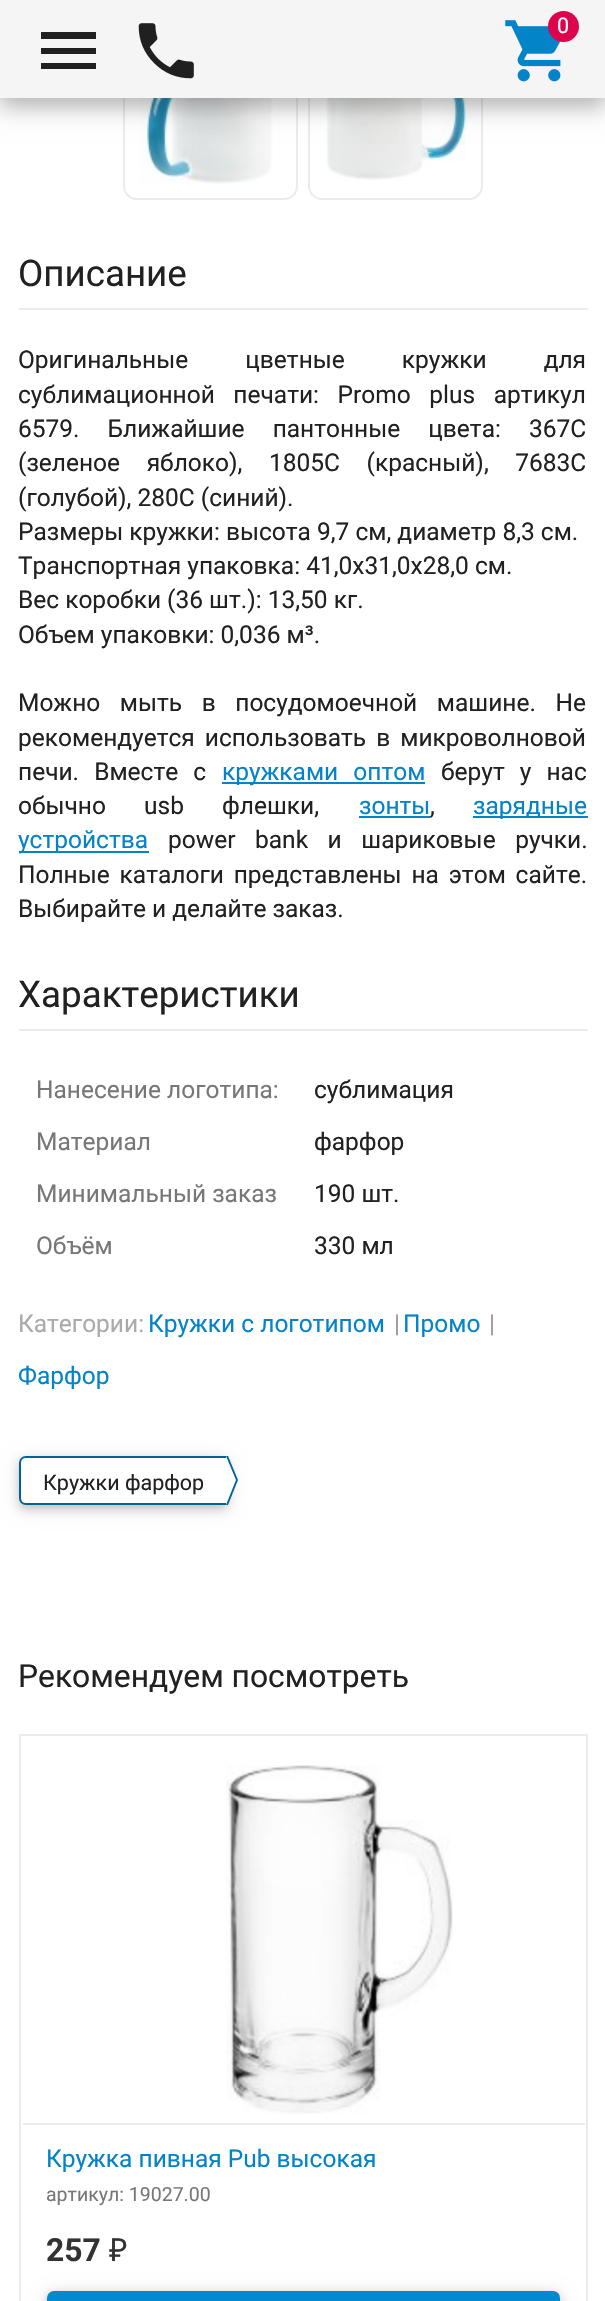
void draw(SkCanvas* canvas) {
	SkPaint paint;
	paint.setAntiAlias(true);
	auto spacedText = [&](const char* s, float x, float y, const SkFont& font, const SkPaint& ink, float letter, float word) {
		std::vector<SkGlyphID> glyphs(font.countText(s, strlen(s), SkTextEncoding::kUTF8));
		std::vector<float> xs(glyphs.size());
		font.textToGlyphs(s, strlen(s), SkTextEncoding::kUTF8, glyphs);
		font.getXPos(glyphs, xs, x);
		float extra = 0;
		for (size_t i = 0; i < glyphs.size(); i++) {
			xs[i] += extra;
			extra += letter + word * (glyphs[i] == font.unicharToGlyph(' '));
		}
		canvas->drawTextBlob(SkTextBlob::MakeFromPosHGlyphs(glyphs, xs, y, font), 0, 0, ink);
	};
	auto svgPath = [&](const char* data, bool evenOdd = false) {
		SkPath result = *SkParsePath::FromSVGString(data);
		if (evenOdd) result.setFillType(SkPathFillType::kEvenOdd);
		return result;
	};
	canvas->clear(0xffffffff);
	paint.setStroke(true);
	paint.setStrokeWidth(2);
	paint.setColor(0xffebebeb);
	canvas->drawRoundRect(SkRect::MakeXYWH(124, 26, 173, 173), 13, 13, paint);
	canvas->drawImageRect(SkImages::DeferredFromEncodedData(SkData::MakeFromFileName("img3.png")), SkRect::MakeXYWH(140, 98, 140, 86), SkSamplingOptions());
	canvas->drawRoundRect(SkRect::MakeXYWH(309, 26, 173, 173), 13, 13, paint);
	canvas->drawImageRect(SkImages::DeferredFromEncodedData(SkData::MakeFromFileName("img4.png")), SkRect::MakeXYWH(325, 98, 141, 82), SkSamplingOptions());
	paint.setStroke(false);
	paint.setColor(0x26000000);
	paint.setMaskFilter(SkMaskFilter::MakeBlur(kNormal_SkBlurStyle, 13));
	canvas->drawRect(SkRect::MakeXYWH(0, 7, 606, 98), paint);
	paint.setMaskFilter(nullptr);
	paint.setColor(0x2e000000);
	paint.setMaskFilter(SkMaskFilter::MakeBlur(kNormal_SkBlurStyle, 9.5));
	canvas->drawRect(SkRect::MakeXYWH(0, 9, 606, 98), paint);
	paint.setMaskFilter(nullptr);
	paint.setColor(0xfff5f5f5);
	canvas->drawRect(SkRect::MakeXYWH(0, 0, 605, 98), paint);
	paint.setColor(0xff202020);
	canvas->drawPath(svgPath("M41 32H96V39H41ZM41 54V48H96V54ZM41 69V63H96V69Z"), paint);
	canvas->drawImageRect(SkImages::DeferredFromEncodedData(SkData::MakeFromFileName("img1.png")), SkRect::MakeXYWH(138, 23, 56, 56), SkSamplingOptions());
	canvas->drawImageRect(SkImages::DeferredFromEncodedData(SkData::MakeFromFileName("img2.png")), SkRect::MakeXYWH(505, 20, 56, 62), SkSamplingOptions());
	paint.setColor(0xffdc044c);
	canvas->drawCircle(563.5, 26.5, 15.5, paint);
	SkFont f1(fontMgr->matchFamilyStyle("Roboto", SkFontStyle::Normal()), 21.5);
	f1.setSubpixel(true);
	paint.setColor(0xffffffff);
	canvas->drawString("0", 557, 33, f1, paint);
	paint.setColor(0xffebebeb);
	canvas->drawRect(SkRect::MakeXYWH(19, 308, 569, 2), paint);
	SkFont f2(fontMgr->matchFamilyStyle("Roboto", SkFontStyle::Normal()), 36.75);
	f2.setSubpixel(true);
	paint.setColor(0xff212121);
	canvas->drawString("Описание", 18, 286, f2, paint);
	SkFont f3(fontMgr->matchFamilyStyle("Roboto", SkFontStyle::Normal()), 24.5);
	f3.setSubpixel(true);
	spacedText("Оригинальные цветные кружки для", 18, 368, f3, paint, 0, 51);
	spacedText("сублимационной печати: Promo plus артикул", 18, 403, f3, paint, 0, 12.5);
	spacedText("6579. Ближайшие пантонные цвета: 367C", 18, 437, f3, paint, 0, 22);
	spacedText("(зеленое яблоко), 1805C (красный), 7683C", 18, 471, f3, paint, 0, 20.5);
	canvas->drawString("(голубой), 280C (синий).", 18, 506, f3, paint);
	canvas->drawString("Размеры кружки: высота 9,7 см, диаметр 8,3 см.", 18, 540, f3, paint);
	canvas->drawString("Транспортная упаковка: 41,0x31,0x28,0 см.", 18, 574, f3, paint);
	canvas->drawString("Вес коробки (36 шт.): 13,50 кг.", 18, 608, f3, paint);
	canvas->drawString("Объем упаковки: 0,036 м³.", 18, 643, f3, paint);
	spacedText("Можно мыть в посудомоечной машине. Не", 18, 711, f3, paint, 0, 13.5);
	spacedText("рекомендуется использовать в микроволновой", 18, 746, f3, paint, 0, 4);
	spacedText("печи. Вместе с", 18, 780, f3, paint, 0, 9);
	paint.setColor(0xff0383c8);
	canvas->drawRect(SkRect::MakeXYWH(222, 782, 203, 2), paint);
	spacedText("кружками оптом", 222, 780, f3, paint, 0, 9);
	paint.setColor(0xff212121);
	spacedText("берут у нас", 441, 780, f3, paint, 0, 9);
	spacedText("обычно usb флешки,", 18, 814, f3, paint, 0, 32);
	paint.setColor(0xff0383c8);
	canvas->drawString("зонты", 359, 814, f3, paint);
	canvas->drawRect(SkRect::MakeXYWH(359, 816, 72, 2), paint);
	paint.setColor(0xff212121);
	canvas->drawString(",", 430, 814, f3, paint);
	paint.setColor(0xff0383c8);
	canvas->drawRect(SkRect::MakeXYWH(473, 816, 115, 2), paint);
	canvas->drawString("зарядные", 473, 814, f3, paint);
	canvas->drawRect(SkRect::MakeXYWH(19, 851, 130, 2), paint);
	canvas->drawString("устройства", 18, 848, f3, paint);
	paint.setColor(0xff212121);
	spacedText("power bank и шариковые ручки.", 168, 848, f3, paint, 0, 13.5);
	spacedText("Полные каталоги представлены на этом сайте.", 18, 883, f3, paint, 0, 3.75);
	canvas->drawString("Выбирайте и делайте заказ.", 18, 917, f3, paint);
	paint.setColor(0xffebebeb);
	canvas->drawRect(SkRect::MakeXYWH(19, 1029, 569, 2), paint);
	paint.setColor(0xff212121);
	canvas->drawString("Характеристики", 18, 1007, f2, paint);
	paint.setColor(0xff777777);
	canvas->drawString("Нанесение логотипа:", 36, 1098, f3, paint);
	paint.setColor(0xff212121);
	canvas->drawString("сублимация", 314, 1098, f3, paint);
	paint.setColor(0xff777777);
	canvas->drawString("Материал", 36, 1150, f3, paint);
	paint.setColor(0xff212121);
	canvas->drawString("фарфор", 314, 1150, f3, paint);
	paint.setColor(0xff777777);
	canvas->drawString("Минимальный заказ", 36, 1202, f3, paint);
	paint.setColor(0xff212121);
	canvas->drawString("190 шт.", 314, 1202, f3, paint);
	paint.setColor(0xff777777);
	canvas->drawString("Объём", 36, 1254, f3, paint);
	paint.setColor(0xff212121);
	canvas->drawString("330 мл", 314, 1254, f3, paint);
	paint.setColor(0xffaaaaaa);
	canvas->drawString("Категории:", 18, 1332, f3, paint);
	paint.setColor(0xff0383c8);
	canvas->drawString("Кружки с логотипом", 148, 1332, f3, paint);
	paint.setColor(0xff999999);
	canvas->drawString("|", 394, 1332, f3, paint);
	paint.setColor(0xff0383c8);
	canvas->drawString("Промо", 403, 1332, f3, paint);
	paint.setColor(0xff999999);
	canvas->drawString("|", 489, 1332, f3, paint);
	paint.setColor(0xff0383c8);
	canvas->drawString("Фарфор", 18, 1384, f3, paint);
	paint.setColor(0x1f000000);
	paint.setMaskFilter(SkMaskFilter::MakeBlur(kNormal_SkBlurStyle, 9));
	canvas->drawRoundRect(SkRect::MakeXYWH(19, 1460, 209, 49), 7, 7, paint);
	paint.setMaskFilter(nullptr);
	paint.setColor(0x29000000);
	paint.setMaskFilter(SkMaskFilter::MakeBlur(kNormal_SkBlurStyle, 4.5));
	canvas->drawRoundRect(SkRect::MakeXYWH(19, 1460, 209, 49), 7, 7, paint);
	paint.setMaskFilter(nullptr);
	paint.setColor(0xffffffff);
	canvas->drawPath(svgPath("M26 1457H227V1504H26C22.5 1504 20 1501.5 20 1498V1463C20 1459.5 22.5 1457 26 1457Z"), paint);
	paint.setStroke(true);
	paint.setColor(0xff026296);
	canvas->drawPath(svgPath("M26 1457H227V1504H26C22.5 1504 20 1501.5 20 1498V1463C20 1459.5 22.5 1457 26 1457Z"), paint);
	paint.setStroke(false);
	canvas->drawPath(svgPath("M228 1505V1456L238 1480Z"), paint);
	paint.setColor(0xffffffff);
	canvas->drawPath(svgPath("M226 1505V1456L236 1480Z"), paint);
	paint.setColor(0xff212121);
	canvas->drawString("Кружки фарфор", 43, 1490, f1, paint);
	SkFont f4(fontMgr->matchFamilyStyle("Roboto", SkFontStyle::Normal()), 31.8);
	f4.setSubpixel(true);
	canvas->drawString("Рекомендуем посмотреть", 18, 1687, f4, paint);
	paint.setStroke(true);
	paint.setColor(0xffebebeb);
	canvas->drawRect(SkRect::MakeXYWH(20, 1735, 567, 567), paint);
	canvas->drawImageRect(SkImages::DeferredFromEncodedData(SkData::MakeFromFileName("img5.png")), SkRect::MakeXYWH(226, 1765, 227, 349), SkSamplingOptions());
	paint.setStroke(false);
	canvas->drawRect(SkRect::MakeXYWH(23, 2123, 562, 2), paint);
	paint.setColor(0xff0383c8);
	canvas->drawString("Кружка пивная Pub высокая", 46, 2167, f3, paint);
	SkFont f5(fontMgr->matchFamilyStyle("Roboto", SkFontStyle::Normal()), 19.5);
	f5.setSubpixel(true);
	paint.setColor(0xff777777);
	canvas->drawString("артикул: 19027.00", 46, 2201, f5, paint);
	SkFont f6(fontMgr->matchFamilyStyle("Roboto", SkFontStyle::Bold()), 31.8);
	f6.setSubpixel(true);
	paint.setColor(0xff333333);
	canvas->drawString("257", 46, 2261, f6, paint);
	SkFont f7(fontMgr->matchFamilyStyle("Noto Sans", SkFontStyle::Normal()), 31.8);
	f7.setSubpixel(true);
	canvas->drawString("₽", 109, 2261, f7, paint);
	paint.setColor(0x1f000000);
	paint.setMaskFilter(SkMaskFilter::MakeBlur(kNormal_SkBlurStyle, 9));
	canvas->drawRoundRect(SkRect::MakeXYWH(47, 2294, 513, 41), 7, 7, paint);
	paint.setMaskFilter(nullptr);
	paint.setColor(0x29000000);
	paint.setMaskFilter(SkMaskFilter::MakeBlur(kNormal_SkBlurStyle, 4.5));
	canvas->drawRoundRect(SkRect::MakeXYWH(47, 2294, 513, 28), 7, 7, paint);
	paint.setMaskFilter(nullptr);
	paint.setColor(0xff0289d1);
	canvas->drawRoundRect(SkRect::MakeXYWH(47, 2291, 513, 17), 7, 7, paint);
}
